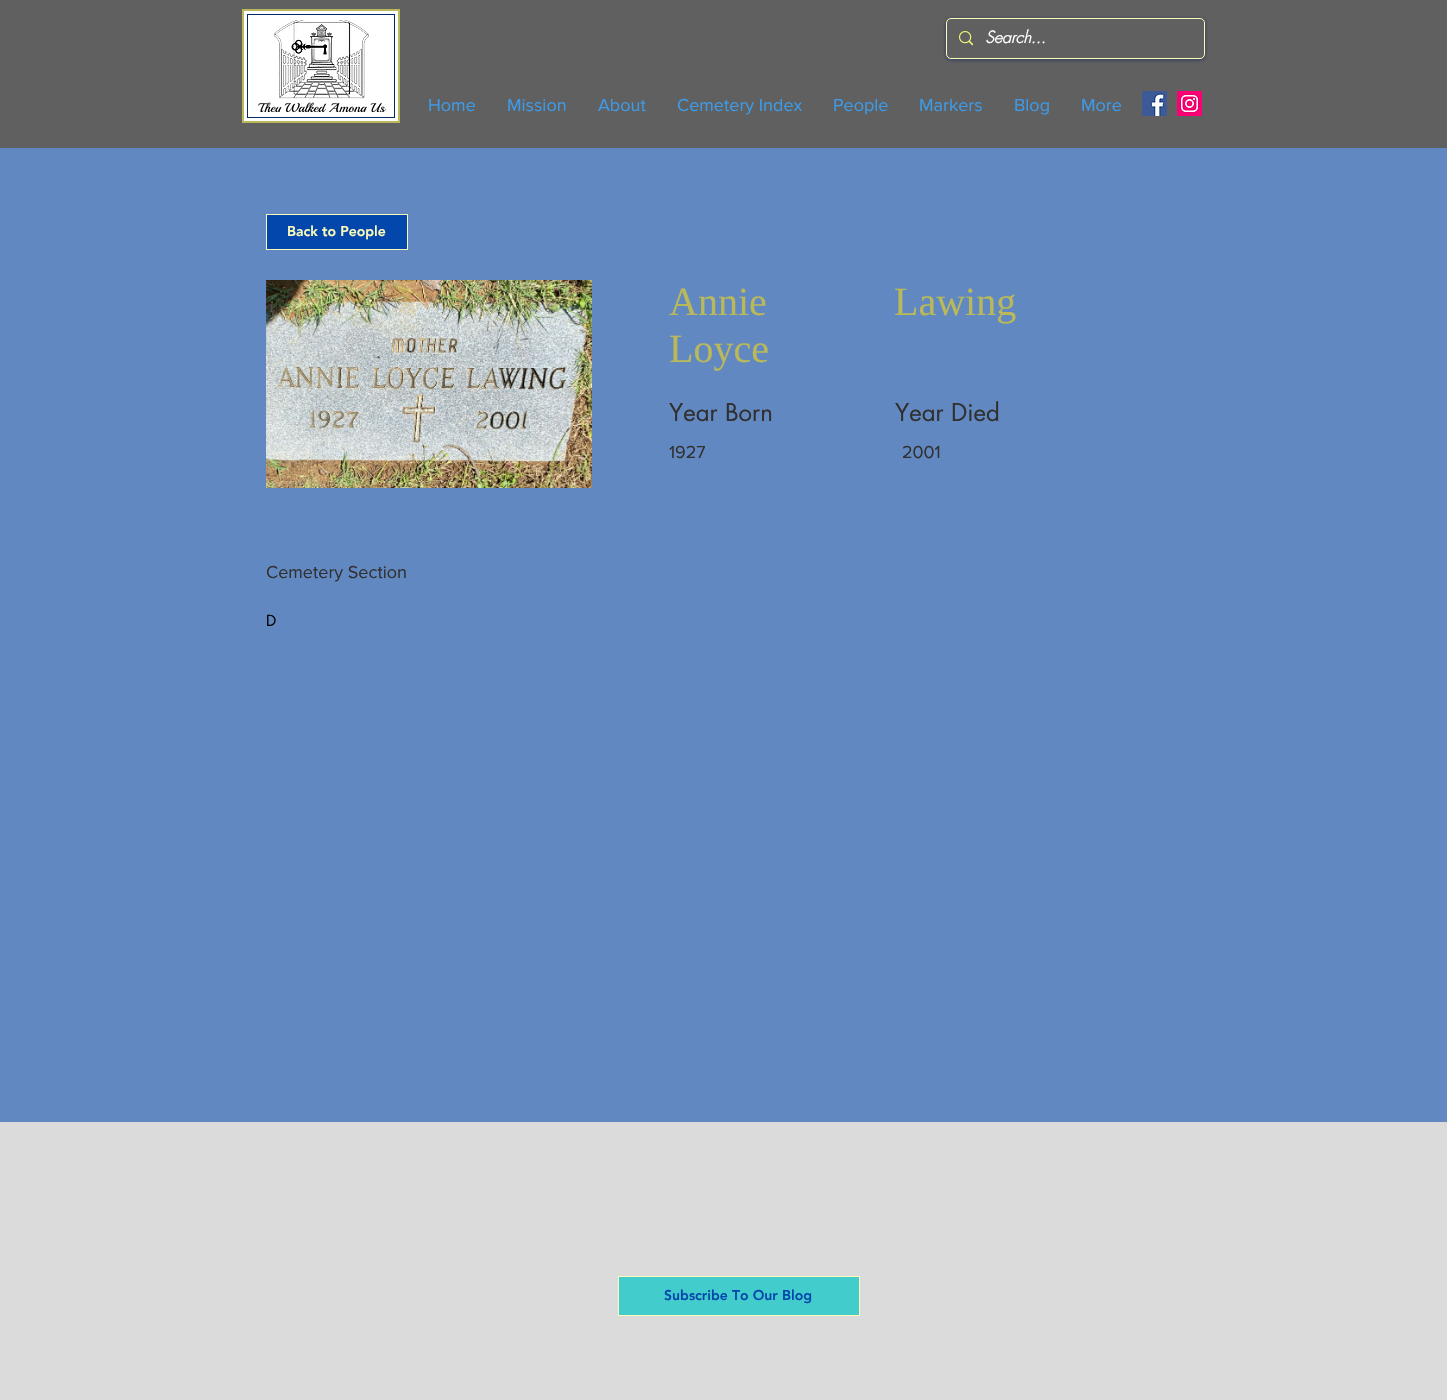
void draw(SkCanvas* canvas) {
	SkPaint paint;
	paint.setAntiAlias(true);
	auto spacedText = [&](const char* s, float x, float y, const SkFont& font, const SkPaint& ink, float letter, float word) {
		std::vector<SkGlyphID> glyphs(font.countText(s, strlen(s), SkTextEncoding::kUTF8));
		std::vector<float> xs(glyphs.size());
		font.textToGlyphs(s, strlen(s), SkTextEncoding::kUTF8, glyphs);
		font.getXPos(glyphs, xs, x);
		float extra = 0;
		for (size_t i = 0; i < glyphs.size(); i++) {
			xs[i] += extra;
			extra += letter + word * (glyphs[i] == font.unicharToGlyph(' '));
		}
		canvas->drawTextBlob(SkTextBlob::MakeFromPosHGlyphs(glyphs, xs, y, font), 0, 0, ink);
	};
	auto svgPath = [&](const char* data, bool evenOdd = false) {
		SkPath result = *SkParsePath::FromSVGString(data);
		if (evenOdd) result.setFillType(SkPathFillType::kEvenOdd);
		return result;
	};
	canvas->clear(0xff6288c2);
	paint.setColor(0xff606060);
	canvas->drawRect(SkRect::MakeXYWH(0, 0, 1447, 148), paint);
	paint.setColor(0xffffffff);
	canvas->drawRect(SkRect::MakeXYWH(243, 10, 156, 112), paint);
	paint.setStroke(true);
	paint.setStrokeWidth(2);
	paint.setColor(0xffb9b959);
	canvas->drawRect(SkRect::MakeXYWH(243, 10, 156, 112), paint);
	canvas->drawImageRect(SkImages::DeferredFromEncodedData(SkData::MakeFromFileName("img1.png")), SkRect::MakeXYWH(258, 20, 128, 92), SkSamplingOptions());
	paint.setStrokeWidth(1);
	paint.setColor(0xff012a69);
	canvas->drawRect(SkRect::MakeXYWH(247.5, 14.5, 147, 103), paint);
	canvas->save();
	canvas->clipPath(svgPath("M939 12H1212V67H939ZM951 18H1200C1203 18 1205 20 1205 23V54C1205 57 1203 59 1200 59H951C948 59 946 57 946 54V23C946 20 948 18 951 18Z", true), true);
	paint.setStroke(false);
	paint.setColor(0x99012357);
	paint.setMaskFilter(SkMaskFilter::MakeBlur(kNormal_SkBlurStyle, 2));
	canvas->drawRoundRect(SkRect::MakeXYWH(946, 19, 259, 41), 5, 5, paint);
	paint.setMaskFilter(nullptr);
	canvas->restore();
	paint.setStroke(true);
	paint.setColor(0xfffbfbba);
	canvas->drawRoundRect(SkRect::MakeXYWH(946.5, 18.5, 258, 40), 4.5, 4.5, paint);
	canvas->drawImageRect(SkImages::DeferredFromEncodedData(SkData::MakeFromFileName("img2.png")), SkRect::MakeXYWH(959, 31, 14, 15), SkSamplingOptions());
	SkFont f1(fontMgr->matchFamilyStyle("futura", SkFontStyle::BoldItalic()), 16);
	f1.setSubpixel(true);
	paint.setStroke(false);
	paint.setColor(0xffffffff);
	canvas->drawString("Search...", 985, 43, f1, paint);
	SkFont f2(fontMgr->matchFamilyStyle("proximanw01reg", SkFontStyle::Normal()), 18);
	f2.setSubpixel(true);
	paint.setColor(0xff3d9be9);
	canvas->drawString("Home", 428, 111, f2, paint);
	canvas->drawString("Mission", 507, 111, f2, paint);
	canvas->drawString("About", 598, 111, f2, paint);
	canvas->drawString("Cemetery Index", 677, 111, f2, paint);
	canvas->drawString("People", 833, 111, f2, paint);
	canvas->drawString("Markers", 919, 111, f2, paint);
	canvas->drawString("Blog", 1014, 111, f2, paint);
	canvas->drawString("More", 1081, 111, f2, paint);
	canvas->drawImageRect(SkImages::DeferredFromEncodedData(SkData::MakeFromFileName("img3.png")), SkRect::MakeXYWH(1142, 91, 25, 25), SkSamplingOptions());
	canvas->drawImageRect(SkImages::DeferredFromEncodedData(SkData::MakeFromFileName("img4.png")), SkRect::MakeXYWH(1177, 91, 25, 25), SkSamplingOptions());
	paint.setColor(0xff0347ad);
	canvas->drawRect(SkRect::MakeXYWH(266.5, 214.5, 141, 35), paint);
	paint.setStroke(true);
	paint.setColor(0xfffbfbba);
	canvas->drawRect(SkRect::MakeXYWH(266.5, 214.5, 141, 35), paint);
	SkFont f3(fontMgr->matchFamilyStyle("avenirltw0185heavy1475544", SkFontStyle(900, SkFontStyle::kNormal_Width, SkFontStyle::kUpright_Slant)), 14);
	f3.setSubpixel(true);
	paint.setStroke(false);
	canvas->drawString("Back to People", 287, 236, f3, paint);
	canvas->drawImageRect(SkImages::DeferredFromEncodedData(SkData::MakeFromFileName("img5.png")), SkRect::MakeXYWH(266, 280, 326, 208), SkSamplingOptions());
	SkFont f4(fontMgr->matchFamilyStyle("Liberation Serif", SkFontStyle::Normal()), 40);
	f4.setSubpixel(true);
	paint.setColor(0xffb9b959);
	canvas->drawString("Annie", 669, 315, f4, paint);
	canvas->drawString("Loyce", 669, 362, f4, paint);
	canvas->drawString("Lawing", 894, 315, f4, paint);
	SkFont f5(fontMgr->matchFamilyStyle("futura", SkFontStyle::Normal()), 24);
	f5.setSubpixel(true);
	paint.setColor(0xff303030);
	canvas->drawString("Year Born", 669, 421, f5, paint);
	canvas->drawString("Year Died", 895, 421, f5, paint);
	canvas->drawString("1927", 669, 458, f2, paint);
	canvas->drawString("2001", 902, 458, f2, paint);
	canvas->drawString("Cemetery Section", 266, 578, f2, paint);
	SkFont f6(fontMgr->matchFamilyStyle("futura", SkFontStyle::Normal()), 15);
	f6.setSubpixel(true);
	paint.setColor(0xff000000);
	spacedText("D", 266, 626, f6, paint, 1, 0);
	paint.setColor(0xffdbdbdb);
	canvas->drawRect(SkRect::MakeXYWH(0, 1122, 1447, 278), paint);
	paint.setColor(0xff42cccc);
	canvas->drawRect(SkRect::MakeXYWH(618.5, 1276.5, 241, 39), paint);
	paint.setStroke(true);
	paint.setColor(0xfffbfbba);
	canvas->drawRect(SkRect::MakeXYWH(618.5, 1276.5, 241, 39), paint);
	paint.setStroke(false);
	paint.setColor(0xff0347ad);
	canvas->drawString("Subscribe To Our Blog", 664, 1300, f3, paint);
}
